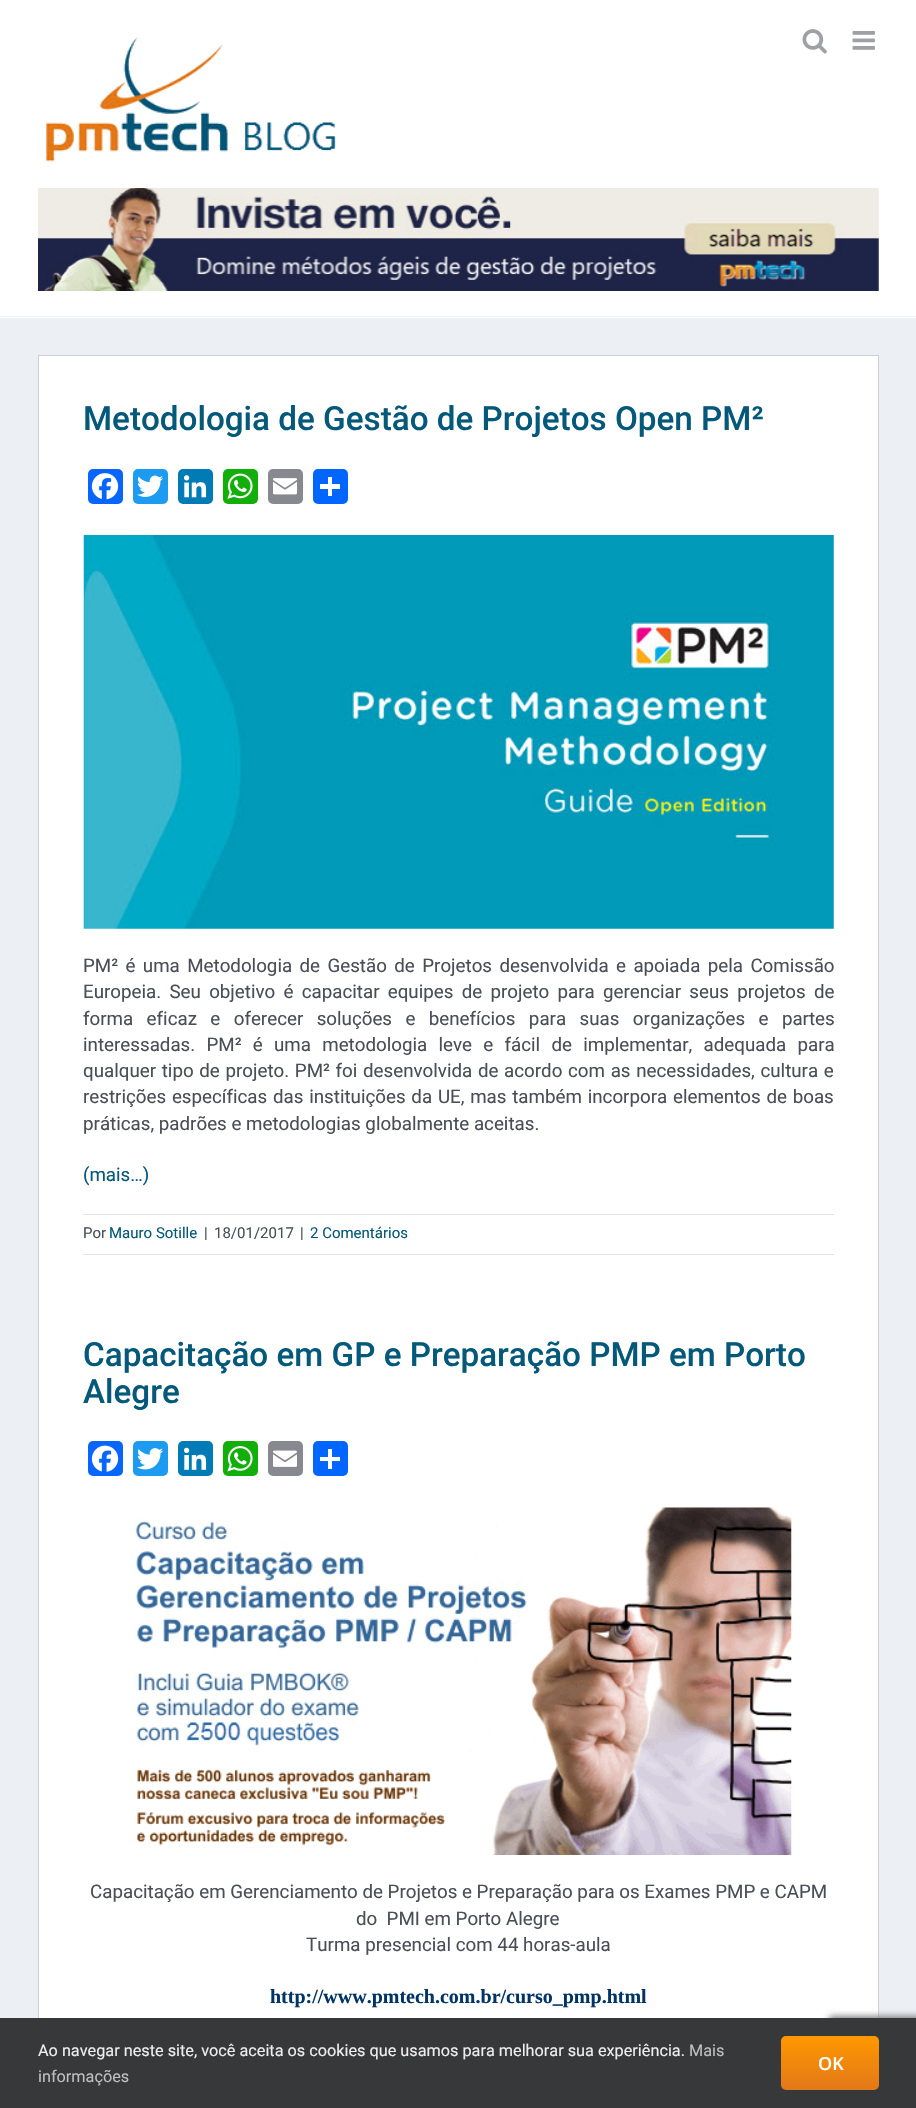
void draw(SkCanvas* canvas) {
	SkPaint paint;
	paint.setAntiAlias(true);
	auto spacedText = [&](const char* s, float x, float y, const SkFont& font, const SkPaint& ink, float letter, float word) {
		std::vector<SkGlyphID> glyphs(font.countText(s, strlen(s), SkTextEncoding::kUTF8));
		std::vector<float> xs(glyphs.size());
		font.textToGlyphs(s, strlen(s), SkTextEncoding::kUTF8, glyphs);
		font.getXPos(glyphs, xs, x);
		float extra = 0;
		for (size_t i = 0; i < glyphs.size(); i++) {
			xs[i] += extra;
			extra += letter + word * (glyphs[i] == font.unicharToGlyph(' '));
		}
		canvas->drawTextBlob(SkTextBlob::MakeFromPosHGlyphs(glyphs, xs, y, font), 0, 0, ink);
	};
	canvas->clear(0xffecf0f5);
	paint.setColor(0xffffffff);
	canvas->drawRect(SkRect::MakeXYWH(0, 0, 916, 318), paint);
	paint.setColor(0xffecf0f4);
	canvas->drawRect(SkRect::MakeXYWH(0, 316, 916, 1), paint);
	canvas->drawImageRect(SkImages::DeferredFromEncodedData(SkData::MakeFromFileName("img1.png")), SkRect::MakeXYWH(802, 29, 25, 25), SkSamplingOptions());
	canvas->drawImageRect(SkImages::DeferredFromEncodedData(SkData::MakeFromFileName("img2.png")), SkRect::MakeXYWH(852, 31, 23, 19), SkSamplingOptions());
	canvas->drawImageRect(SkImages::DeferredFromEncodedData(SkData::MakeFromFileName("img3.png")), SkRect::MakeXYWH(46, 37, 290, 125), SkSamplingOptions());
	canvas->drawImageRect(SkImages::DeferredFromEncodedData(SkData::MakeFromFileName("img4.png")), SkRect::MakeXYWH(38, 188, 841, 103), SkSamplingOptions());
	paint.setColor(0xffffffff);
	canvas->drawRect(SkRect::MakeXYWH(39, 356, 839, 1662), paint);
	paint.setStroke(true);
	paint.setStrokeWidth(1);
	paint.setColor(0xffcdcfd2);
	canvas->drawRect(SkRect::MakeXYWH(38.5, 355.5, 840, 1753), paint);
	SkFont f1(fontMgr->matchFamilyStyle("Roboto", SkFontStyle(500, SkFontStyle::kNormal_Width, SkFontStyle::kUpright_Slant)), 33.25);
	f1.setSubpixel(true);
	paint.setStroke(false);
	paint.setColor(0xff04587a);
	canvas->drawString("Metodologia de Gestão de Projetos Open PM²", 83, 430, f1, paint);
	paint.setColor(0xff0866ff);
	canvas->drawRoundRect(SkRect::MakeXYWH(88, 469, 35, 35), 5, 5, paint);
	canvas->drawImageRect(SkImages::DeferredFromEncodedData(SkData::MakeFromFileName("img5.png")), SkRect::MakeXYWH(91, 473, 28, 27), SkSamplingOptions());
	paint.setColor(0xff1d9bf0);
	canvas->drawRoundRect(SkRect::MakeXYWH(133, 469, 35, 35), 5, 5, paint);
	canvas->drawImageRect(SkImages::DeferredFromEncodedData(SkData::MakeFromFileName("img6.png")), SkRect::MakeXYWH(137, 475, 26, 22), SkSamplingOptions());
	paint.setColor(0xff007bb5);
	canvas->drawRoundRect(SkRect::MakeXYWH(178, 469, 35, 35), 5, 5, paint);
	canvas->drawImageRect(SkImages::DeferredFromEncodedData(SkData::MakeFromFileName("img7.png")), SkRect::MakeXYWH(184, 475, 23, 23), SkSamplingOptions());
	paint.setColor(0xff12af0a);
	canvas->drawRoundRect(SkRect::MakeXYWH(223, 469, 35, 35), 5, 5, paint);
	canvas->drawImageRect(SkImages::DeferredFromEncodedData(SkData::MakeFromFileName("img8.png")), SkRect::MakeXYWH(227, 473, 26, 26), SkSamplingOptions());
	paint.setColor(0xff888990);
	canvas->drawRoundRect(SkRect::MakeXYWH(268, 469, 35, 35), 5, 5, paint);
	canvas->drawImageRect(SkImages::DeferredFromEncodedData(SkData::MakeFromFileName("img9.png")), SkRect::MakeXYWH(273, 478, 24, 17), SkSamplingOptions());
	paint.setColor(0xff0166ff);
	canvas->drawRoundRect(SkRect::MakeXYWH(313, 469, 35, 35), 5, 5, paint);
	paint.setColor(0xffffffff);
	canvas->drawRect(SkRect::MakeXYWH(328, 477, 4, 19), paint);
	canvas->drawRect(SkRect::MakeXYWH(320, 484, 20, 5), paint);
	canvas->drawImageRect(SkImages::DeferredFromEncodedData(SkData::MakeFromFileName("img10.png")), SkRect::MakeXYWH(83, 535, 751, 394), SkSamplingOptions());
	SkFont f2(fontMgr->matchFamilyStyle("Roboto", SkFontStyle::Normal()), 18.75);
	f2.setSubpixel(true);
	paint.setColor(0xff4a4e57);
	spacedText("PM² é uma Metodologia de Gestão de Projetos desenvolvida e apoiada pela Comissão", 83, 972, f2, paint, 0, 2.75);
	spacedText("Europeia. Seu objetivo é capacitar equipes de projeto para gerenciar seus projetos de", 83, 998, f2, paint, 0, 3.6);
	spacedText("forma eficaz e oferecer soluções e benefícios para suas organizações e partes", 83, 1025, f2, paint, 0, 8.75);
	spacedText("interessadas. PM² é uma metodologia leve e fácil de implementar, adequada para", 83, 1051, f2, paint, 0, 6.6);
	spacedText("qualquer tipo de projeto. PM² foi desenvolvida de acordo com as necessidades, cultura e", 83, 1077, f2, paint, 0, 1);
	spacedText("restrições específicas das instituições da UE, mas também incorpora elementos de boas", 83, 1103, f2, paint, 0, 1.1);
	canvas->drawString("práticas, padrões e metodologias globalmente aceitas.", 83, 1130, f2, paint);
	paint.setColor(0xff04587a);
	canvas->drawString("(mais…)", 83, 1181, f2, paint);
	paint.setColor(0xffe2e2e2);
	canvas->drawRect(SkRect::MakeXYWH(83, 1214, 751, 1), paint);
	canvas->drawRect(SkRect::MakeXYWH(83, 1254, 751, 1), paint);
	SkFont f3(fontMgr->matchFamilyStyle("Roboto", SkFontStyle::Normal()), 15);
	f3.setSubpixel(true);
	paint.setColor(0xff4a4e57);
	canvas->drawString("Por", 83, 1238, f3, paint);
	paint.setColor(0xff04587a);
	canvas->drawString("Mauro Sotille", 109, 1238, f3, paint);
	paint.setColor(0xff4a4e57);
	canvas->drawString("|", 204, 1238, f3, paint);
	canvas->drawString("18/01/2017", 214, 1238, f3, paint);
	canvas->drawString("|", 300, 1238, f3, paint);
	paint.setColor(0xff04587a);
	canvas->drawString("2 Comentários", 310, 1238, f3, paint);
	canvas->drawString("Capacitação em GP e Preparação PMP em Porto", 83, 1366, f1, paint);
	canvas->drawString("Alegre", 83, 1403, f1, paint);
	paint.setColor(0xff0866ff);
	canvas->drawRoundRect(SkRect::MakeXYWH(88, 1441, 35, 35), 5, 5, paint);
	canvas->drawImageRect(SkImages::DeferredFromEncodedData(SkData::MakeFromFileName("img11.png")), SkRect::MakeXYWH(91, 1445, 28, 27), SkSamplingOptions());
	paint.setColor(0xff1d9bf0);
	canvas->drawRoundRect(SkRect::MakeXYWH(133, 1441, 35, 35), 5, 5, paint);
	canvas->drawImageRect(SkImages::DeferredFromEncodedData(SkData::MakeFromFileName("img12.png")), SkRect::MakeXYWH(137, 1448, 26, 22), SkSamplingOptions());
	paint.setColor(0xff007bb5);
	canvas->drawRoundRect(SkRect::MakeXYWH(178, 1441, 35, 35), 5, 5, paint);
	canvas->drawImageRect(SkImages::DeferredFromEncodedData(SkData::MakeFromFileName("img13.png")), SkRect::MakeXYWH(184, 1447, 23, 23), SkSamplingOptions());
	paint.setColor(0xff12af0a);
	canvas->drawRoundRect(SkRect::MakeXYWH(223, 1441, 35, 35), 5, 5, paint);
	canvas->drawImageRect(SkImages::DeferredFromEncodedData(SkData::MakeFromFileName("img14.png")), SkRect::MakeXYWH(227, 1446, 26, 26), SkSamplingOptions());
	paint.setColor(0xff888990);
	canvas->drawRoundRect(SkRect::MakeXYWH(268, 1441, 35, 35), 5, 5, paint);
	canvas->drawImageRect(SkImages::DeferredFromEncodedData(SkData::MakeFromFileName("img15.png")), SkRect::MakeXYWH(273, 1450, 24, 17), SkSamplingOptions());
	paint.setColor(0xff0166ff);
	canvas->drawRoundRect(SkRect::MakeXYWH(313, 1441, 35, 35), 5, 5, paint);
	paint.setColor(0xffffffff);
	canvas->drawRect(SkRect::MakeXYWH(328, 1449, 4, 20), paint);
	canvas->drawRect(SkRect::MakeXYWH(320, 1457, 20, 4), paint);
	canvas->drawImageRect(SkImages::DeferredFromEncodedData(SkData::MakeFromFileName("img16.png")), SkRect::MakeXYWH(134, 1507, 658, 348), SkSamplingOptions());
	paint.setColor(0xff4a4e57);
	canvas->drawString("Capacitação em Gerenciamento de Projetos e Preparação para os Exames PMP e CAPM", 90, 1898, f2, paint);
	canvas->drawString("do  PMI em Porto Alegre", 356, 1925, f2, paint);
	canvas->drawString("Turma presencial com 44 horas-aula", 306, 1951, f2, paint);
	SkFont f4(fontMgr->matchFamilyStyle("Liberation Serif", SkFontStyle::Bold()), 20);
	f4.setSubpixel(true);
	paint.setColor(0xff003366);
	canvas->drawString("http://www.pmtech.com.br/curso_pmp.html", 270, 2003, f4, paint);
	paint.setColor(0xff808080);
	paint.setMaskFilter(SkMaskFilter::MakeBlur(kNormal_SkBlurStyle, 3));
	canvas->drawRoundRect(SkRect::MakeXYWH(829, 2016, 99, 75), 2.5, 2.5, paint);
	paint.setMaskFilter(nullptr);
	paint.setColor(0xff363839);
	canvas->drawRect(SkRect::MakeXYWH(0, 2018, 916, 90), paint);
	SkFont f5(fontMgr->matchFamilyStyle("Roboto", SkFontStyle::Normal()), 16.25);
	f5.setSubpixel(true);
	paint.setColor(0xffeeeeee);
	canvas->drawString("Ao navegar neste site, você aceita os cookies que usamos para melhorar sua experiência.", 38, 2056, f5, paint);
	paint.setColor(0xffbfbfbf);
	canvas->drawString("Mais", 689, 2056, f5, paint);
	canvas->drawString("informações", 38, 2082, f5, paint);
	{
		const SkColor colors[] = {0xffff9800, 0xffe27819};
		const float stops[] = {0, 1};
		const SkPoint ends[] = {{830, 2036}, {830, 2090}};
		paint.setShader(SkGradientShader::MakeLinear(ends, colors, stops, 2, SkTileMode::kClamp));
		paint.setAlpha(255);
	}
	canvas->drawRoundRect(SkRect::MakeXYWH(781, 2036, 98, 54), 5, 5, paint);
	SkFont f6(fontMgr->matchFamilyStyle("Open Sans", SkFontStyle(600, SkFontStyle::kNormal_Width, SkFontStyle::kUpright_Slant)), 18);
	f6.setSubpixel(true);
	paint.setShader(nullptr);
	paint.setColor(0xffffffff);
	canvas->drawString("OK", 818, 2070, f6, paint);
}
